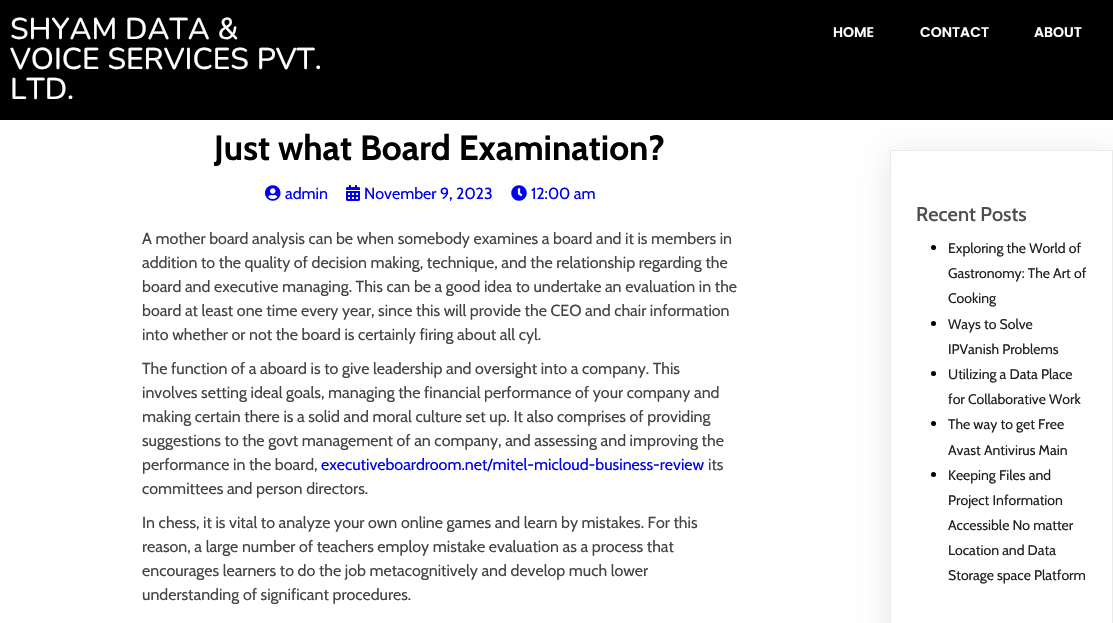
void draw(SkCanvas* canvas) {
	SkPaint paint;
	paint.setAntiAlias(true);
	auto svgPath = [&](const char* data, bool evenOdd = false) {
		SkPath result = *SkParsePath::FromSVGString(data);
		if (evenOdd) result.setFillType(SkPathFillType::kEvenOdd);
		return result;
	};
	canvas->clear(0xffffffff);
	canvas->save();
	canvas->clipPath(svgPath("M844 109H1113V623H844ZM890 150H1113V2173H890Z", true), true);
	paint.setColor(0x1a000000);
	paint.setMaskFilter(SkMaskFilter::MakeBlur(kNormal_SkBlurStyle, 15));
	canvas->drawRect(SkRect::MakeXYWH(890, 155, 223, 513), paint);
	paint.setMaskFilter(nullptr);
	canvas->restore();
	paint.setColor(0xff000000);
	canvas->drawRect(SkRect::MakeXYWH(0, 0, 1113, 120), paint);
	SkFont f1(fontMgr->matchFamilyStyle("Nunito", SkFontStyle(500, SkFontStyle::kNormal_Width, SkFontStyle::kUpright_Slant)), 30);
	f1.setSubpixel(true);
	paint.setColor(0xffffffff);
	canvas->drawString("SHYAM DATA &", 10, 39, f1, paint);
	canvas->drawString("VOICE SERVICES PVT.", 10, 69, f1, paint);
	canvas->drawString("LTD.", 10, 99, f1, paint);
	SkFont f2(fontMgr->matchFamilyStyle("Poppins", SkFontStyle(600, SkFontStyle::kNormal_Width, SkFontStyle::kUpright_Slant)), 14);
	f2.setSubpixel(true);
	canvas->drawString("HOME", 833, 37, f2, paint);
	canvas->drawString("CONTACT", 920, 37, f2, paint);
	canvas->drawString("ABOUT", 1034, 37, f2, paint);
	SkFont f3(fontMgr->matchFamilyStyle("Cabin", SkFontStyle::Bold()), 35);
	f3.setSubpixel(true);
	paint.setColor(0xff000000);
	canvas->drawString("Just what Board Examination?", 214, 160, f3, paint);
	canvas->drawImageRect(SkImages::DeferredFromEncodedData(SkData::MakeFromFileName("img1.png")), SkRect::MakeXYWH(265, 185, 16, 16), SkSamplingOptions());
	SkFont f4(fontMgr->matchFamilyStyle("Cabin", SkFontStyle::Normal()), 16);
	f4.setSubpixel(true);
	paint.setColor(0xff0000ee);
	canvas->drawString("admin", 285, 199, f4, paint);
	canvas->drawImageRect(SkImages::DeferredFromEncodedData(SkData::MakeFromFileName("img2.png")), SkRect::MakeXYWH(346, 185, 14, 16), SkSamplingOptions());
	canvas->drawString("November 9, 2023", 364, 199, f4, paint);
	canvas->drawImageRect(SkImages::DeferredFromEncodedData(SkData::MakeFromFileName("img3.png")), SkRect::MakeXYWH(511, 185, 16, 16), SkSamplingOptions());
	canvas->drawString("12:00 am", 531, 199, f4, paint);
	paint.setColor(0xff444444);
	canvas->drawString("A mother board analysis can be when somebody examines a board and it is members in", 142, 244, f4, paint);
	canvas->drawString("addition to the quality of decision making, technique, and the relationship regarding the", 142, 268, f4, paint);
	canvas->drawString("board and executive managing. This can be a good idea to undertake an evaluation in the", 142, 292, f4, paint);
	canvas->drawString("board at least one time every year, since this will provide the CEO and chair information", 142, 316, f4, paint);
	canvas->drawString("into whether or not the board is certainly firing about all cyl.", 142, 340, f4, paint);
	canvas->drawString("The function of a aboard is to give leadership and oversight into a company. This", 142, 374, f4, paint);
	canvas->drawString("involves setting ideal goals, managing the financial performance of your company and", 142, 398, f4, paint);
	canvas->drawString("making certain there is a solid and moral culture set up. It also comprises of providing", 142, 422, f4, paint);
	canvas->drawString("suggestions to the govt management of an company, and assessing and improving the", 142, 446, f4, paint);
	canvas->drawString("performance in the board,", 142, 470, f4, paint);
	paint.setColor(0xff0000ee);
	canvas->drawString("executiveboardroom.net/mitel-micloud-business-review", 321, 470, f4, paint);
	paint.setColor(0xff444444);
	canvas->drawString("its", 708, 470, f4, paint);
	canvas->drawString("committees and person directors.", 142, 494, f4, paint);
	canvas->drawString("In chess, it is vital to analyze your own online games and learn by mistakes. For this", 142, 528, f4, paint);
	canvas->drawString("reason, a large number of teachers employ mistake evaluation as a process that", 142, 552, f4, paint);
	canvas->drawString("encourages learners to do the job metacognitively and develop much lower", 142, 576, f4, paint);
	canvas->drawString("understanding of significant procedures.", 142, 600, f4, paint);
	paint.setStroke(true);
	paint.setStrokeWidth(1);
	paint.setColor(0xffeaeaea);
	canvas->drawRect(SkRect::MakeXYWH(890.5, 150.5, 222, 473), paint);
	SkFont f5(fontMgr->matchFamilyStyle("Cabin", SkFontStyle(500, SkFontStyle::kNormal_Width, SkFontStyle::kUpright_Slant)), 20);
	f5.setSubpixel(true);
	paint.setStroke(false);
	paint.setColor(0xff4d4d4d);
	canvas->drawString("Recent Posts", 916, 221, f5, paint);
	paint.setColor(0xff000000);
	canvas->drawCircle(933.5, 247.5, 2.5, paint);
	SkFont f6(fontMgr->matchFamilyStyle("Cabin", SkFontStyle::Normal()), 14);
	f6.setSubpixel(true);
	paint.setColor(0xff212121);
	canvas->drawString("Exploring the World of", 948, 253, f6, paint);
	canvas->drawString("Gastronomy: The Art of", 948, 278, f6, paint);
	canvas->drawString("Cooking", 948, 303, f6, paint);
	paint.setColor(0xff000000);
	canvas->drawCircle(933.5, 323.5, 2.5, paint);
	paint.setColor(0xff212121);
	canvas->drawString("Ways to Solve", 948, 329, f6, paint);
	canvas->drawString("IPVanish Problems", 948, 354, f6, paint);
	paint.setColor(0xff000000);
	canvas->drawCircle(933.5, 373.5, 2.5, paint);
	paint.setColor(0xff212121);
	canvas->drawString("Utilizing a Data Place", 948, 379, f6, paint);
	canvas->drawString("for Collaborative Work", 948, 404, f6, paint);
	paint.setColor(0xff000000);
	canvas->drawCircle(933.5, 423.5, 2.5, paint);
	paint.setColor(0xff212121);
	canvas->drawString("The way to get Free", 948, 429, f6, paint);
	canvas->drawString("Avast Antivirus Main", 948, 455, f6, paint);
	paint.setColor(0xff000000);
	canvas->drawCircle(933.5, 474.5, 2.5, paint);
	paint.setColor(0xff212121);
	canvas->drawString("Keeping Files and", 948, 480, f6, paint);
	canvas->drawString("Project Information", 948, 505, f6, paint);
	canvas->drawString("Accessible No matter", 948, 530, f6, paint);
	canvas->drawString("Location and Data", 948, 555, f6, paint);
	canvas->drawString("Storage space Platform", 948, 580, f6, paint);
}
